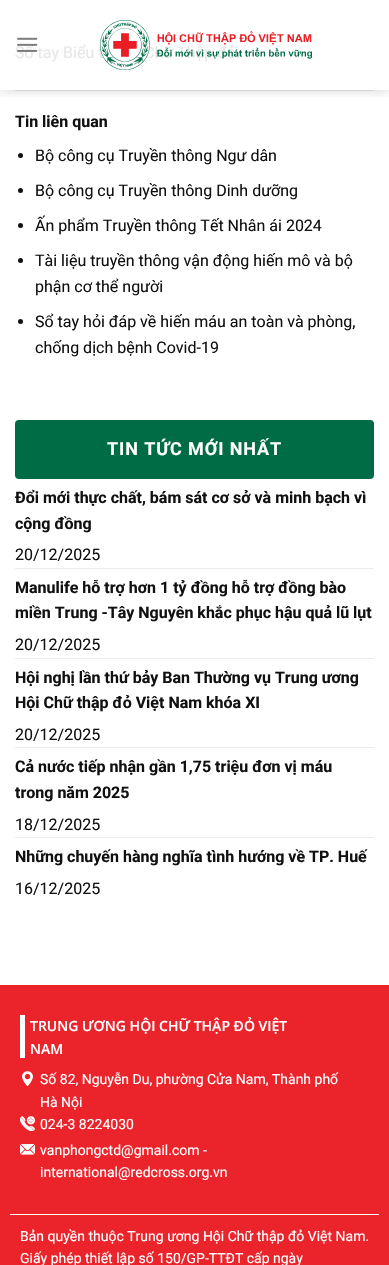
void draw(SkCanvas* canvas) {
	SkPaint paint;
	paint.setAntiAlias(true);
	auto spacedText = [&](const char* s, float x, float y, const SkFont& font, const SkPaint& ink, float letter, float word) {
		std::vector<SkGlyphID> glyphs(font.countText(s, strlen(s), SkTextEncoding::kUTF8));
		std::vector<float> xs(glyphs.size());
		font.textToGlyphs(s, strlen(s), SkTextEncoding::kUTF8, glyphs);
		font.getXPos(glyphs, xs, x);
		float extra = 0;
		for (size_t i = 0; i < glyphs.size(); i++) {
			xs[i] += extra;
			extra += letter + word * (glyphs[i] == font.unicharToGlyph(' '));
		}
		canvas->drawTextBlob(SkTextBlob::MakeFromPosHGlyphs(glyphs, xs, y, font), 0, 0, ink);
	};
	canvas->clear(0xffffffff);
	canvas->save();
	canvas->clipRect(SkRect::MakeXYWH(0, 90, 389, 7));
	paint.setColor(0x26000000);
	paint.setMaskFilter(SkMaskFilter::MakeBlur(kNormal_SkBlurStyle, 5));
	canvas->drawRect(SkRect::MakeXYWH(1, 1, 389, 90), paint);
	paint.setMaskFilter(nullptr);
	canvas->restore();
	SkFont f1(fontMgr->matchFamilyStyle("Roboto", SkFontStyle::Normal()), 16);
	f1.setSubpixel(true);
	paint.setColor(0xffe7e7e7);
	canvas->drawString("Sổ tay Biểu t", 15, 58, f1, paint);
	canvas->drawImageRect(SkImages::DeferredFromEncodedData(SkData::MakeFromFileName("img1.png")), SkRect::MakeXYWH(17, 37, 21, 15), SkSamplingOptions());
	canvas->drawString("Chữ Thập đỏ.", 144, 58, f1, paint);
	canvas->drawImageRect(SkImages::DeferredFromEncodedData(SkData::MakeFromFileName("img2.png")), SkRect::MakeXYWH(100, 20, 212, 50), SkSamplingOptions());
	paint.setColor(0xffd5d5d5);
	canvas->drawRect(SkRect::MakeXYWH(15, 90, 359, 1), paint);
	SkFont f2(fontMgr->matchFamilyStyle("Roboto", SkFontStyle::Bold()), 16);
	f2.setSubpixel(true);
	paint.setColor(0xff111111);
	canvas->drawString("Tin liên quan", 15, 127, f2, paint);
	canvas->drawCircle(20.5, 155.5, 2.5, paint);
	canvas->drawString("Bộ công cụ Truyền thông Ngư dân", 35, 161, f1, paint);
	canvas->drawCircle(20.5, 190.5, 2.5, paint);
	canvas->drawString("Bộ công cụ Truyền thông Dinh dưỡng", 35, 196, f1, paint);
	canvas->drawCircle(20.5, 225.5, 2.5, paint);
	canvas->drawString("Ấn phẩm Truyền thông Tết Nhân ái 2024", 35, 231, f1, paint);
	canvas->drawCircle(20.5, 260.5, 2.5, paint);
	canvas->drawString("Tài liệu truyền thông vận động hiến mô và bộ", 35, 266, f1, paint);
	canvas->drawString("phận cơ thể người", 35, 292, f1, paint);
	canvas->drawCircle(20.5, 321.5, 2.5, paint);
	canvas->drawString("Sổ tay hỏi đáp về hiến máu an toàn và phòng,", 35, 327, f1, paint);
	canvas->drawString("chống dịch bệnh Covid-19", 35, 353, f1, paint);
	paint.setColor(0xff006c45);
	canvas->drawRoundRect(SkRect::MakeXYWH(15, 420, 359, 59), 4, 4, paint);
	SkFont f3(fontMgr->matchFamilyStyle("Roboto", SkFontStyle::Bold()), 18);
	f3.setSubpixel(true);
	paint.setColor(0xffffffff);
	spacedText("TIN TỨC MỚI NHẤT", 107, 455, f3, paint, 0.9, 0);
	paint.setColor(0xff111111);
	canvas->drawString("Đổi mới thực chất, bám sát cơ sở và minh bạch vì", 15, 503, f2, paint);
	canvas->drawString("cộng đồng", 15, 529, f2, paint);
	canvas->drawString("20/12/2025", 15, 560, f1, paint);
	paint.setColor(0xffececec);
	canvas->drawRect(SkRect::MakeXYWH(15, 568, 359, 1), paint);
	paint.setColor(0xff111111);
	canvas->drawString("Manulife hỗ trợ hơn 1 tỷ đồng hỗ trợ đồng bào", 15, 593, f2, paint);
	canvas->drawString("miền Trung -Tây Nguyên khắc phục hậu quả lũ lụt", 15, 618, f2, paint);
	canvas->drawString("20/12/2025", 15, 650, f1, paint);
	paint.setColor(0xffececec);
	canvas->drawRect(SkRect::MakeXYWH(15, 658, 359, 1), paint);
	paint.setColor(0xff111111);
	canvas->drawString("Hội nghị lần thứ bảy Ban Thường vụ Trung ương", 15, 683, f2, paint);
	canvas->drawString("Hội Chữ thập đỏ Việt Nam khóa XI", 15, 708, f2, paint);
	canvas->drawString("20/12/2025", 15, 740, f1, paint);
	paint.setColor(0xffececec);
	canvas->drawRect(SkRect::MakeXYWH(15, 747, 359, 1), paint);
	paint.setColor(0xff111111);
	canvas->drawString("Cả nước tiếp nhận gần 1,75 triệu đơn vị máu", 15, 772, f2, paint);
	canvas->drawString("trong năm 2025", 15, 798, f2, paint);
	canvas->drawString("18/12/2025", 15, 830, f1, paint);
	paint.setColor(0xffececec);
	canvas->drawRect(SkRect::MakeXYWH(15, 837, 359, 1), paint);
	paint.setColor(0xff111111);
	canvas->drawString("Những chuyến hàng nghĩa tình hướng về TP. Huế", 15, 862, f2, paint);
	canvas->drawString("16/12/2025", 15, 894, f1, paint);
	paint.setColor(0xffeb232a);
	canvas->drawRect(SkRect::MakeXYWH(0, 985, 389, 280), paint);
	paint.setColor(0xffffffff);
	canvas->drawRect(SkRect::MakeXYWH(20, 1015, 5, 43), paint);
	SkFont f4(fontMgr->matchFamilyStyle("Open Sans", SkFontStyle(600, SkFontStyle::kNormal_Width, SkFontStyle::kUpright_Slant)), 14);
	f4.setSubpixel(true);
	canvas->drawString("TRUNG ƯƠNG HỘI CHỮ THẬP ĐỎ VIỆT", 30, 1031, f4, paint);
	canvas->drawString("NAM", 30, 1054, f4, paint);
	canvas->drawImageRect(SkImages::DeferredFromEncodedData(SkData::MakeFromFileName("img3.png")), SkRect::MakeXYWH(22, 1071, 11, 15), SkSamplingOptions());
	SkFont f5(fontMgr->matchFamilyStyle("Roboto", SkFontStyle::Normal()), 14);
	f5.setSubpixel(true);
	canvas->drawString("Số 82, Nguyễn Du, phường Cửa Nam, Thành phố", 40, 1084, f5, paint);
	canvas->drawString("Hà Nội", 40, 1107, f5, paint);
	canvas->drawImageRect(SkImages::DeferredFromEncodedData(SkData::MakeFromFileName("img4.png")), SkRect::MakeXYWH(20, 1116, 15, 15), SkSamplingOptions());
	canvas->drawString("024-3 8224030", 40, 1129, f5, paint);
	canvas->drawImageRect(SkImages::DeferredFromEncodedData(SkData::MakeFromFileName("img5.png")), SkRect::MakeXYWH(20, 1144, 15, 11), SkSamplingOptions());
	canvas->drawString("vanphongctd@gmail.com -", 40, 1155, f5, paint);
	canvas->drawString("international@redcross.org.vn", 40, 1177, f5, paint);
	canvas->drawRect(SkRect::MakeXYWH(10, 1214, 369, 1), paint);
	canvas->drawString("Bản quyền thuộc Trung ương Hội Chữ thập đỏ Việt Nam.", 20, 1241, f5, paint);
	canvas->drawString("Giấy phép thiết lập số 150/GP-TTĐT cấp ngày", 20, 1263, f5, paint);
}
